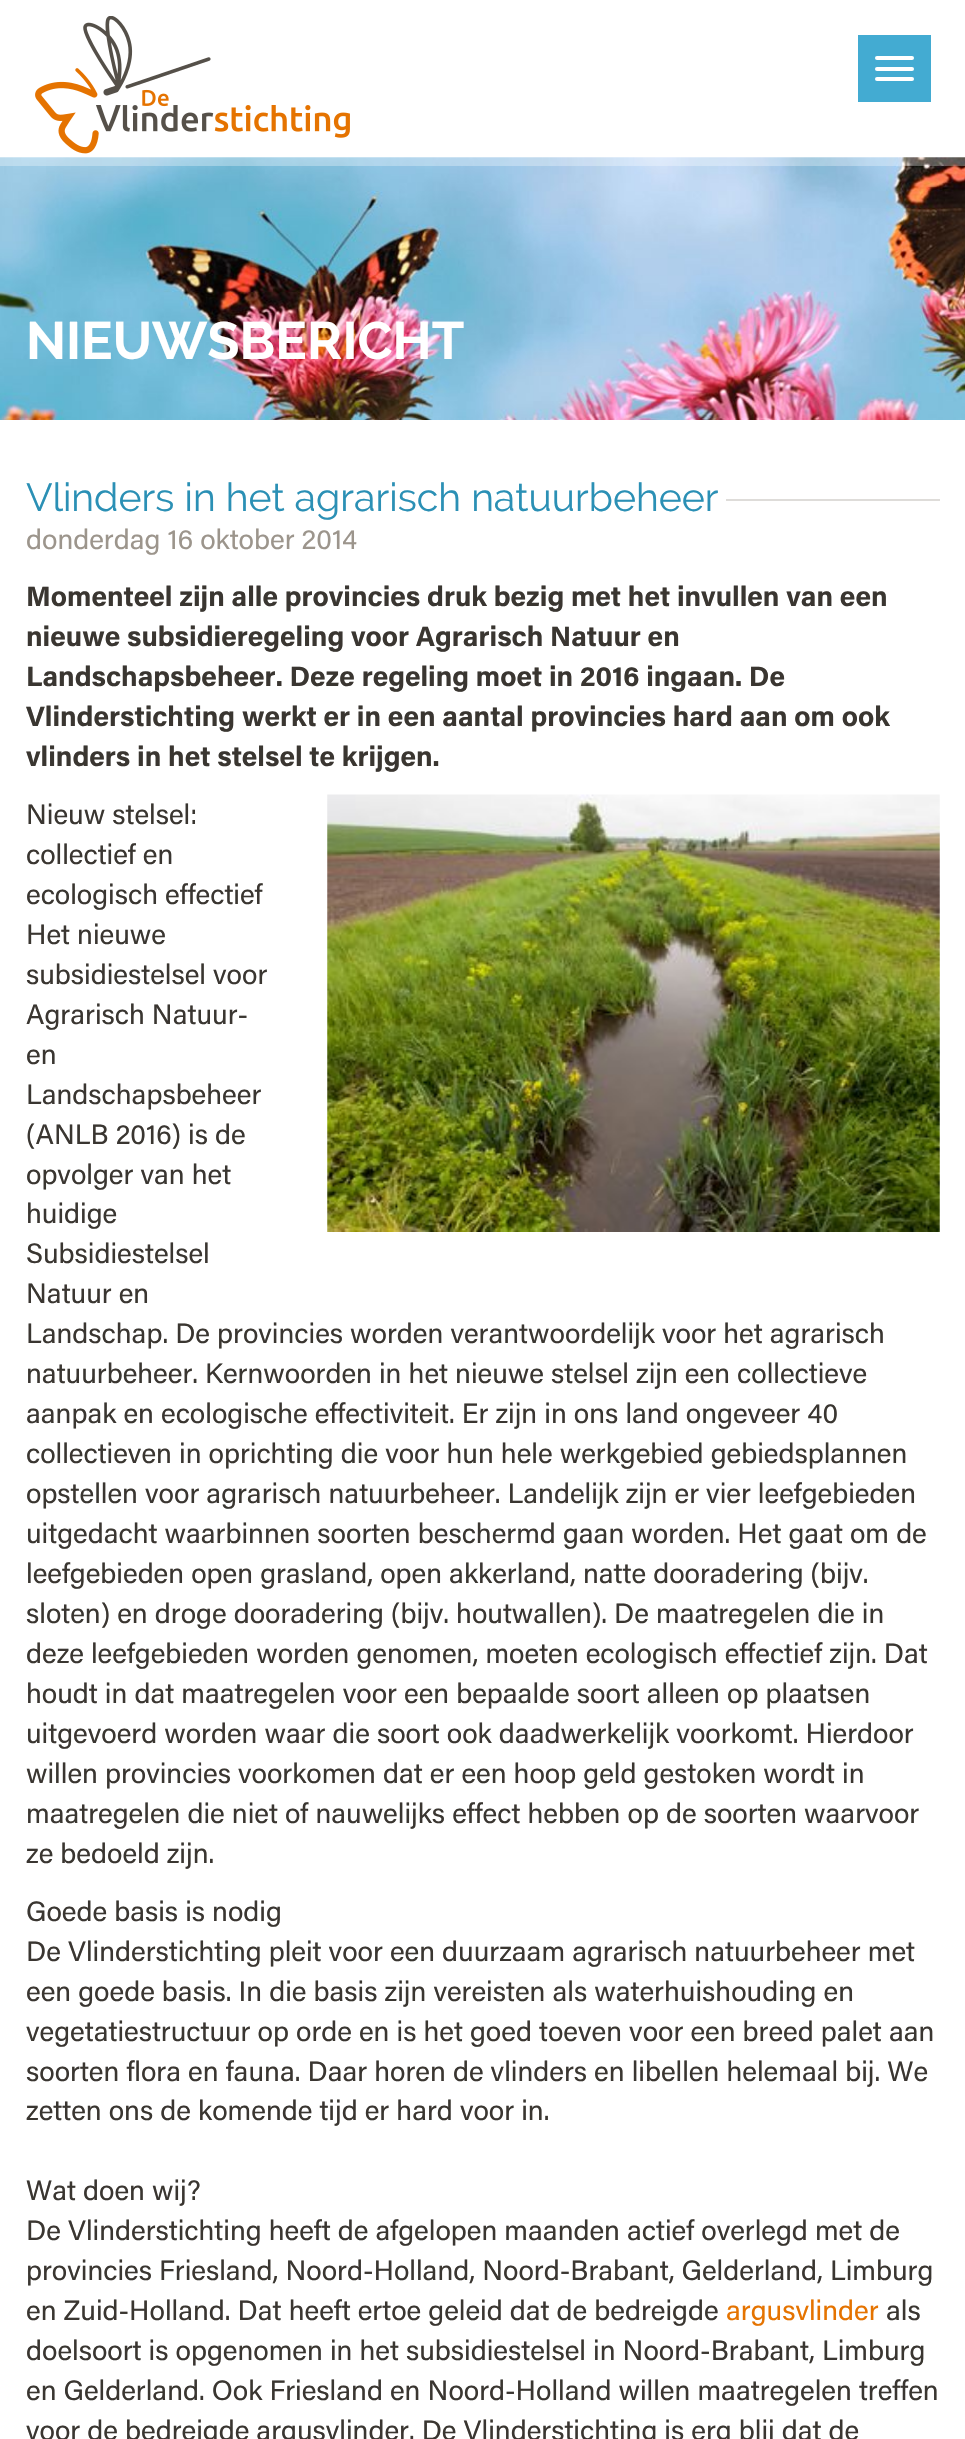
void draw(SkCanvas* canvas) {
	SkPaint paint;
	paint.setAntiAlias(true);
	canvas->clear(0xffffffff);
	canvas->drawImageRect(SkImages::DeferredFromEncodedData(SkData::MakeFromFileName("img1.png")), SkRect::MakeXYWH(35, 16, 315, 138), SkSamplingOptions());
	paint.setColor(0xff43abd2);
	canvas->drawRect(SkRect::MakeXYWH(858, 35, 73, 67), paint);
	paint.setColor(0xffffffff);
	canvas->drawRoundRect(SkRect::MakeXYWH(875, 56, 39, 4), 2, 2, paint);
	canvas->drawRoundRect(SkRect::MakeXYWH(875, 67, 39, 4), 2, 2, paint);
	canvas->drawRoundRect(SkRect::MakeXYWH(875, 77, 39, 4), 2, 2, paint);
	canvas->drawImageRect(SkImages::DeferredFromEncodedData(SkData::MakeFromFileName("img2.png")), SkRect::MakeXYWH(0, 157, 965, 263), SkSamplingOptions());
	paint.setColor(0x4dffffff);
	canvas->drawRect(SkRect::MakeXYWH(0, 158, 965, 8), paint);
	SkFont f1(fontMgr->matchFamilyStyle("Raleway", SkFontStyle::Bold()), 52.5);
	f1.setSubpixel(true);
	paint.setColor(0xffffffff);
	canvas->drawString("NIEUWSBERICHT", 26, 359, f1, paint);
	SkFont f2(fontMgr->matchFamilyStyle("Raleway", SkFontStyle::Normal()), 39.25);
	f2.setSubpixel(true);
	paint.setColor(0xff2b90b5);
	canvas->drawString("Vlinders in het agrarisch natuurbeheer", 26, 511, f2, paint);
	paint.setColor(0xffdedcd9);
	canvas->drawRect(SkRect::MakeXYWH(726, 499, 214, 2), paint);
	SkFont f3(fontMgr->matchFamilyStyle("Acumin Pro", SkFontStyle::Normal()), 28);
	f3.setSubpixel(true);
	paint.setColor(0xff9c958c);
	canvas->drawString("donderdag 16 oktober 2014", 26, 549, f3, paint);
	SkFont f4(fontMgr->matchFamilyStyle("Acumin Pro", SkFontStyle::Bold()), 28);
	f4.setSubpixel(true);
	paint.setColor(0xff3a3631);
	canvas->drawString("Momenteel zijn alle provincies druk bezig met het invullen van een", 26, 606, f4, paint);
	canvas->drawString("nieuwe subsidieregeling voor Agrarisch Natuur en", 26, 646, f4, paint);
	canvas->drawString("Landschapsbeheer. Deze regeling moet in 2016 ingaan. De", 26, 686, f4, paint);
	canvas->drawString("Vlinderstichting werkt er in een aantal provincies hard aan om ook", 26, 726, f4, paint);
	canvas->drawString("vlinders in het stelsel te krijgen.", 26, 766, f4, paint);
	canvas->drawImageRect(SkImages::DeferredFromEncodedData(SkData::MakeFromFileName("img3.png")), SkRect::MakeXYWH(327, 794, 613, 438), SkSamplingOptions());
	canvas->drawString("Nieuw stelsel:", 26, 824, f3, paint);
	canvas->drawString("collectief en", 26, 864, f3, paint);
	canvas->drawString("ecologisch effectief", 26, 904, f3, paint);
	canvas->drawString("Het nieuwe", 26, 944, f3, paint);
	canvas->drawString("subsidiestelsel voor", 26, 984, f3, paint);
	canvas->drawString("Agrarisch Natuur-", 26, 1024, f3, paint);
	canvas->drawString("en", 26, 1064, f3, paint);
	canvas->drawString("Landschapsbeheer", 26, 1104, f3, paint);
	canvas->drawString("(ANLB 2016) is de", 26, 1144, f3, paint);
	canvas->drawString("opvolger van het", 26, 1184, f3, paint);
	canvas->drawString("huidige", 26, 1223, f3, paint);
	canvas->drawString("Subsidiestelsel", 26, 1263, f3, paint);
	canvas->drawString("Natuur en", 26, 1303, f3, paint);
	canvas->drawString("Landschap. De provincies worden verantwoordelijk voor het agrarisch", 26, 1343, f3, paint);
	canvas->drawString("natuurbeheer. Kernwoorden in het nieuwe stelsel zijn een collectieve", 26, 1383, f3, paint);
	canvas->drawString("aanpak en ecologische effectiviteit. Er zijn in ons land ongeveer 40", 26, 1423, f3, paint);
	canvas->drawString("collectieven in oprichting die voor hun hele werkgebied gebiedsplannen", 26, 1463, f3, paint);
	canvas->drawString("opstellen voor agrarisch natuurbeheer. Landelijk zijn er vier leefgebieden", 26, 1503, f3, paint);
	canvas->drawString("uitgedacht waarbinnen soorten beschermd gaan worden. Het gaat om de", 26, 1543, f3, paint);
	canvas->drawString("leefgebieden open grasland, open akkerland, natte dooradering (bijv.", 26, 1583, f3, paint);
	canvas->drawString("sloten) en droge dooradering (bijv. houtwallen). De maatregelen die in", 26, 1623, f3, paint);
	canvas->drawString("deze leefgebieden worden genomen, moeten ecologisch effectief zijn. Dat", 26, 1663, f3, paint);
	canvas->drawString("houdt in dat maatregelen voor een bepaalde soort alleen op plaatsen", 26, 1703, f3, paint);
	canvas->drawString("uitgevoerd worden waar die soort ook daadwerkelijk voorkomt. Hierdoor", 26, 1743, f3, paint);
	canvas->drawString("willen provincies voorkomen dat er een hoop geld gestoken wordt in", 26, 1783, f3, paint);
	canvas->drawString("maatregelen die niet of nauwelijks effect hebben op de soorten waarvoor", 26, 1823, f3, paint);
	canvas->drawString("ze bedoeld zijn.", 26, 1863, f3, paint);
	canvas->drawString("Goede basis is nodig", 26, 1921, f3, paint);
	canvas->drawString("De Vlinderstichting pleit voor een duurzaam agrarisch natuurbeheer met", 26, 1961, f3, paint);
	canvas->drawString("een goede basis. In die basis zijn vereisten als waterhuishouding en", 26, 2001, f3, paint);
	canvas->drawString("vegetatiestructuur op orde en is het goed toeven voor een breed palet aan", 26, 2041, f3, paint);
	canvas->drawString("soorten flora en fauna. Daar horen de vlinders en libellen helemaal bij. We", 26, 2081, f3, paint);
	canvas->drawString("zetten ons de komende tijd er hard voor in.", 26, 2120, f3, paint);
	canvas->drawString("Wat doen wij?", 26, 2200, f3, paint);
	canvas->drawString("De Vlinderstichting heeft de afgelopen maanden actief overlegd met de", 26, 2240, f3, paint);
	canvas->drawString("provincies Friesland, Noord-Holland, Noord-Brabant, Gelderland, Limburg", 26, 2280, f3, paint);
	canvas->drawString("en Zuid-Holland. Dat heeft ertoe geleid dat de bedreigde", 26, 2320, f3, paint);
	paint.setColor(0xffe57300);
	canvas->drawString("argusvlinder", 726, 2320, f3, paint);
	paint.setColor(0xff3a3631);
	canvas->drawString("als", 886, 2320, f3, paint);
	canvas->drawString("doelsoort is opgenomen in het subsidiestelsel in Noord-Brabant, Limburg", 26, 2360, f3, paint);
	canvas->drawString("en Gelderland. Ook Friesland en Noord-Holland willen maatregelen treffen", 26, 2400, f3, paint);
	canvas->drawString("voor de bedreigde argusvlinder. De Vlinderstichting is erg blij dat de", 26, 2440, f3, paint);
}
